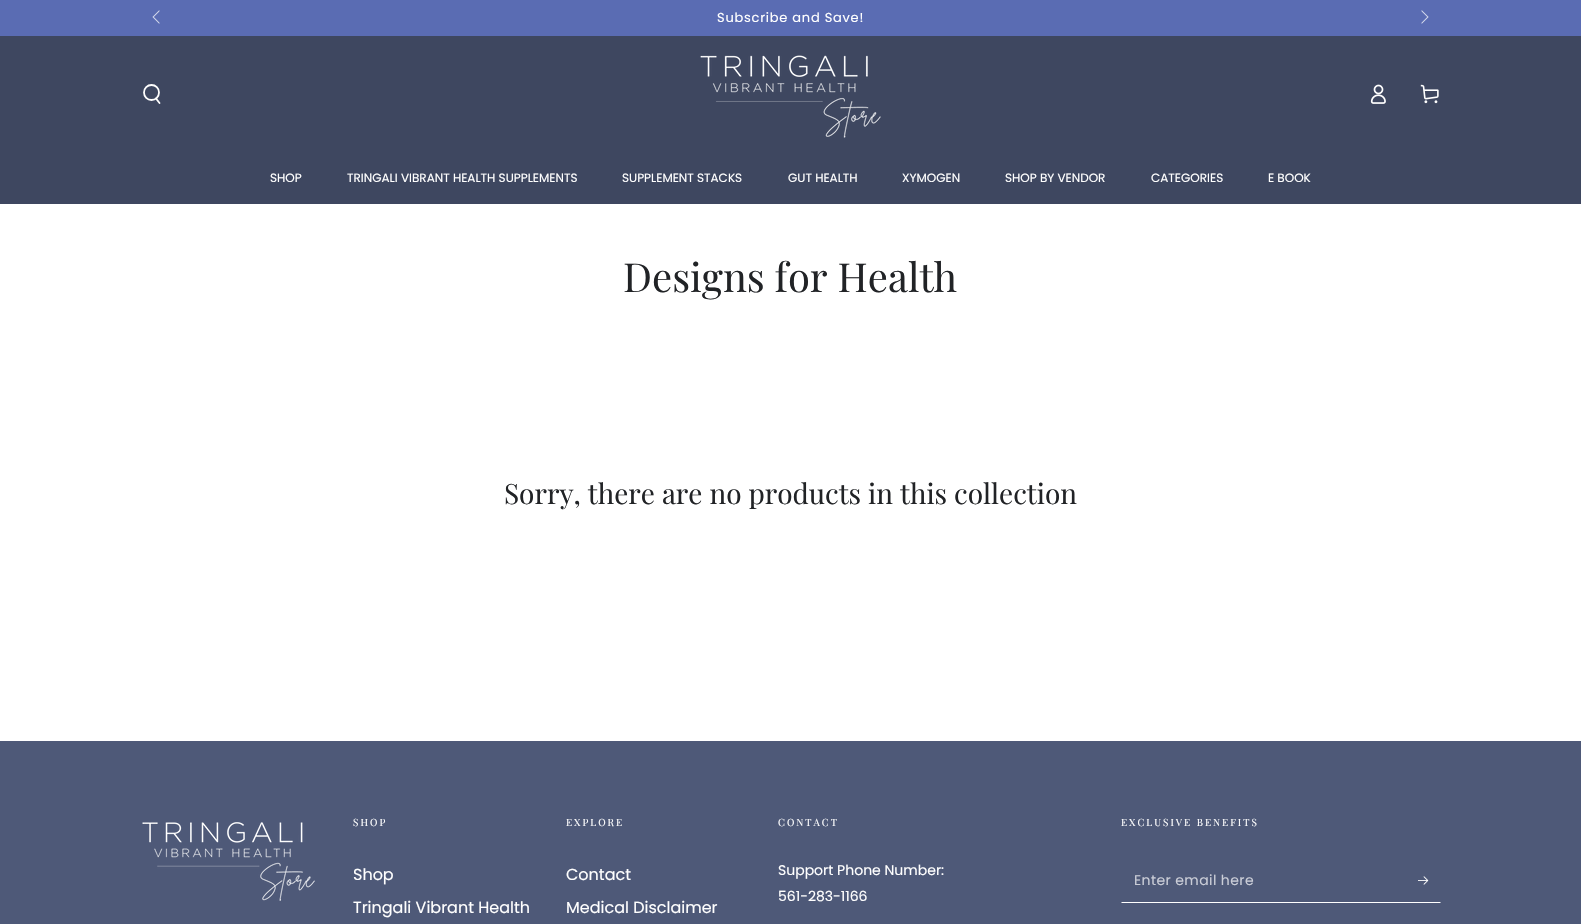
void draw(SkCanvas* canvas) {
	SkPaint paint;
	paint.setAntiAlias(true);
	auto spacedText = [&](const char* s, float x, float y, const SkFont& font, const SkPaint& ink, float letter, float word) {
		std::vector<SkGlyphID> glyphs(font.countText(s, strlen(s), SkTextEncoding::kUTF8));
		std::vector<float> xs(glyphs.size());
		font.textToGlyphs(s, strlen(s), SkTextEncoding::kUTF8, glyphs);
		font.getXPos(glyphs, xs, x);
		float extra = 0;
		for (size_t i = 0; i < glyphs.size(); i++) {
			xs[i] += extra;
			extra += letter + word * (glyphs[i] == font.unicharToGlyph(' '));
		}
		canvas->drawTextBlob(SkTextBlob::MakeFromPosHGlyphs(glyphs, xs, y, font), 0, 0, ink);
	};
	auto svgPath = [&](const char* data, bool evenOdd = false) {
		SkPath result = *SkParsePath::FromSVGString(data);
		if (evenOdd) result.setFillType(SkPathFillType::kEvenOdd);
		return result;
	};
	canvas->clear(0xffffffff);
	paint.setColor(0xff5a6cb3);
	canvas->drawRect(SkRect::MakeXYWH(0, 0, 1581, 36), paint);
	canvas->drawImageRect(SkImages::DeferredFromEncodedData(SkData::MakeFromFileName("img1.png")), SkRect::MakeXYWH(152, 10, 8, 14), SkSamplingOptions());
	canvas->drawImageRect(SkImages::DeferredFromEncodedData(SkData::MakeFromFileName("img2.png")), SkRect::MakeXYWH(1421, 10, 8, 14), SkSamplingOptions());
	SkFont f1(fontMgr->matchFamilyStyle("Poppins", SkFontStyle::Normal()), 13);
	f1.setSubpixel(true);
	paint.setColor(0xffffffff);
	spacedText("Subscribe and Save!", 717, 22, f1, paint, 0.75, 0);
	paint.setColor(0xff3e4760);
	canvas->drawRect(SkRect::MakeXYWH(0, 36, 1581, 168), paint);
	paint.setStroke(true);
	paint.setStrokeWidth(1.8);
	paint.setColor(0xffffffff);
	canvas->drawCircle(151.5, 92.5, 7.5, paint);
	paint.setStrokeCap(SkPaint::kRound_Cap);
	canvas->drawPath(svgPath("M156 98.5L159.5 103"), paint);
	canvas->drawImageRect(SkImages::DeferredFromEncodedData(SkData::MakeFromFileName("img3.png")), SkRect::MakeXYWH(700, 55, 181, 83), SkSamplingOptions());
	canvas->drawImageRect(SkImages::DeferredFromEncodedData(SkData::MakeFromFileName("img4.png")), SkRect::MakeXYWH(1370, 84, 16, 20), SkSamplingOptions());
	canvas->drawImageRect(SkImages::DeferredFromEncodedData(SkData::MakeFromFileName("img5.png")), SkRect::MakeXYWH(1420, 84, 19, 20), SkSamplingOptions());
	SkFont f2(fontMgr->matchFamilyStyle("Poppins", SkFontStyle::Normal()), 12);
	f2.setSubpixel(true);
	paint.setStroke(false);
	canvas->drawString("SHOP", 270, 182, f2, paint);
	canvas->drawString("TRINGALI VIBRANT HEALTH SUPPLEMENTS", 347, 182, f2, paint);
	canvas->drawString("SUPPLEMENT STACKS", 622, 182, f2, paint);
	canvas->drawString("GUT HEALTH", 788, 182, f2, paint);
	canvas->drawString("XYMOGEN", 902, 182, f2, paint);
	canvas->drawString("SHOP BY VENDOR", 1005, 182, f2, paint);
	canvas->drawString("CATEGORIES", 1151, 182, f2, paint);
	canvas->drawString("E BOOK", 1268, 182, f2, paint);
	SkFont f3(fontMgr->matchFamilyStyle("Playfair Display", SkFontStyle::Normal()), 40);
	f3.setSubpixel(true);
	paint.setColor(0xff212326);
	canvas->drawString("Designs for Health", 623, 292, f3, paint);
	SkFont f4(fontMgr->matchFamilyStyle("Playfair Display", SkFontStyle::Normal()), 28);
	f4.setSubpixel(true);
	canvas->drawString("Sorry, there are no products in this collection", 504, 504, f4, paint);
	paint.setColor(0xff4e5978);
	canvas->drawRect(SkRect::MakeXYWH(0, 741, 1581, 183), paint);
	canvas->drawImageRect(SkImages::DeferredFromEncodedData(SkData::MakeFromFileName("img6.png")), SkRect::MakeXYWH(142, 822, 173, 79), SkSamplingOptions());
	SkFont f5(fontMgr->matchFamilyStyle("Playfair Display", SkFontStyle::Normal()), 10);
	f5.setSubpixel(true);
	paint.setColor(0xffffffff);
	spacedText("SHOP", 353, 826, f5, paint, 2, 0);
	SkFont f6(fontMgr->matchFamilyStyle("Poppins", SkFontStyle::Normal()), 16);
	f6.setSubpixel(true);
	canvas->drawString("Shop", 353, 880, f6, paint);
	canvas->drawString("Tringali Vibrant Health", 353, 913, f6, paint);
	spacedText("EXPLORE", 566, 826, f5, paint, 2, 0);
	canvas->drawString("Contact", 566, 880, f6, paint);
	canvas->drawString("Medical Disclaimer", 566, 913, f6, paint);
	spacedText("CONTACT", 778, 826, f5, paint, 2, 0);
	SkFont f7(fontMgr->matchFamilyStyle("Poppins", SkFontStyle::Normal()), 14);
	f7.setSubpixel(true);
	canvas->drawString("Support Phone Number:", 778, 875, f7, paint);
	canvas->drawString("561-283-1166", 778, 901, f7, paint);
	spacedText("EXCLUSIVE BENEFITS", 1121, 826, f5, paint, 2, 0);
	canvas->drawPath(svgPath("M1441 903H1121L1122 902H1440Z"), paint);
	paint.setColor(0xffcacdd7);
	spacedText("Enter email here", 1134, 885, f7, paint, 0.4, 0);
	canvas->drawImageRect(SkImages::DeferredFromEncodedData(SkData::MakeFromFileName("img7.png")), SkRect::MakeXYWH(1418, 876, 11, 9), SkSamplingOptions());
}
